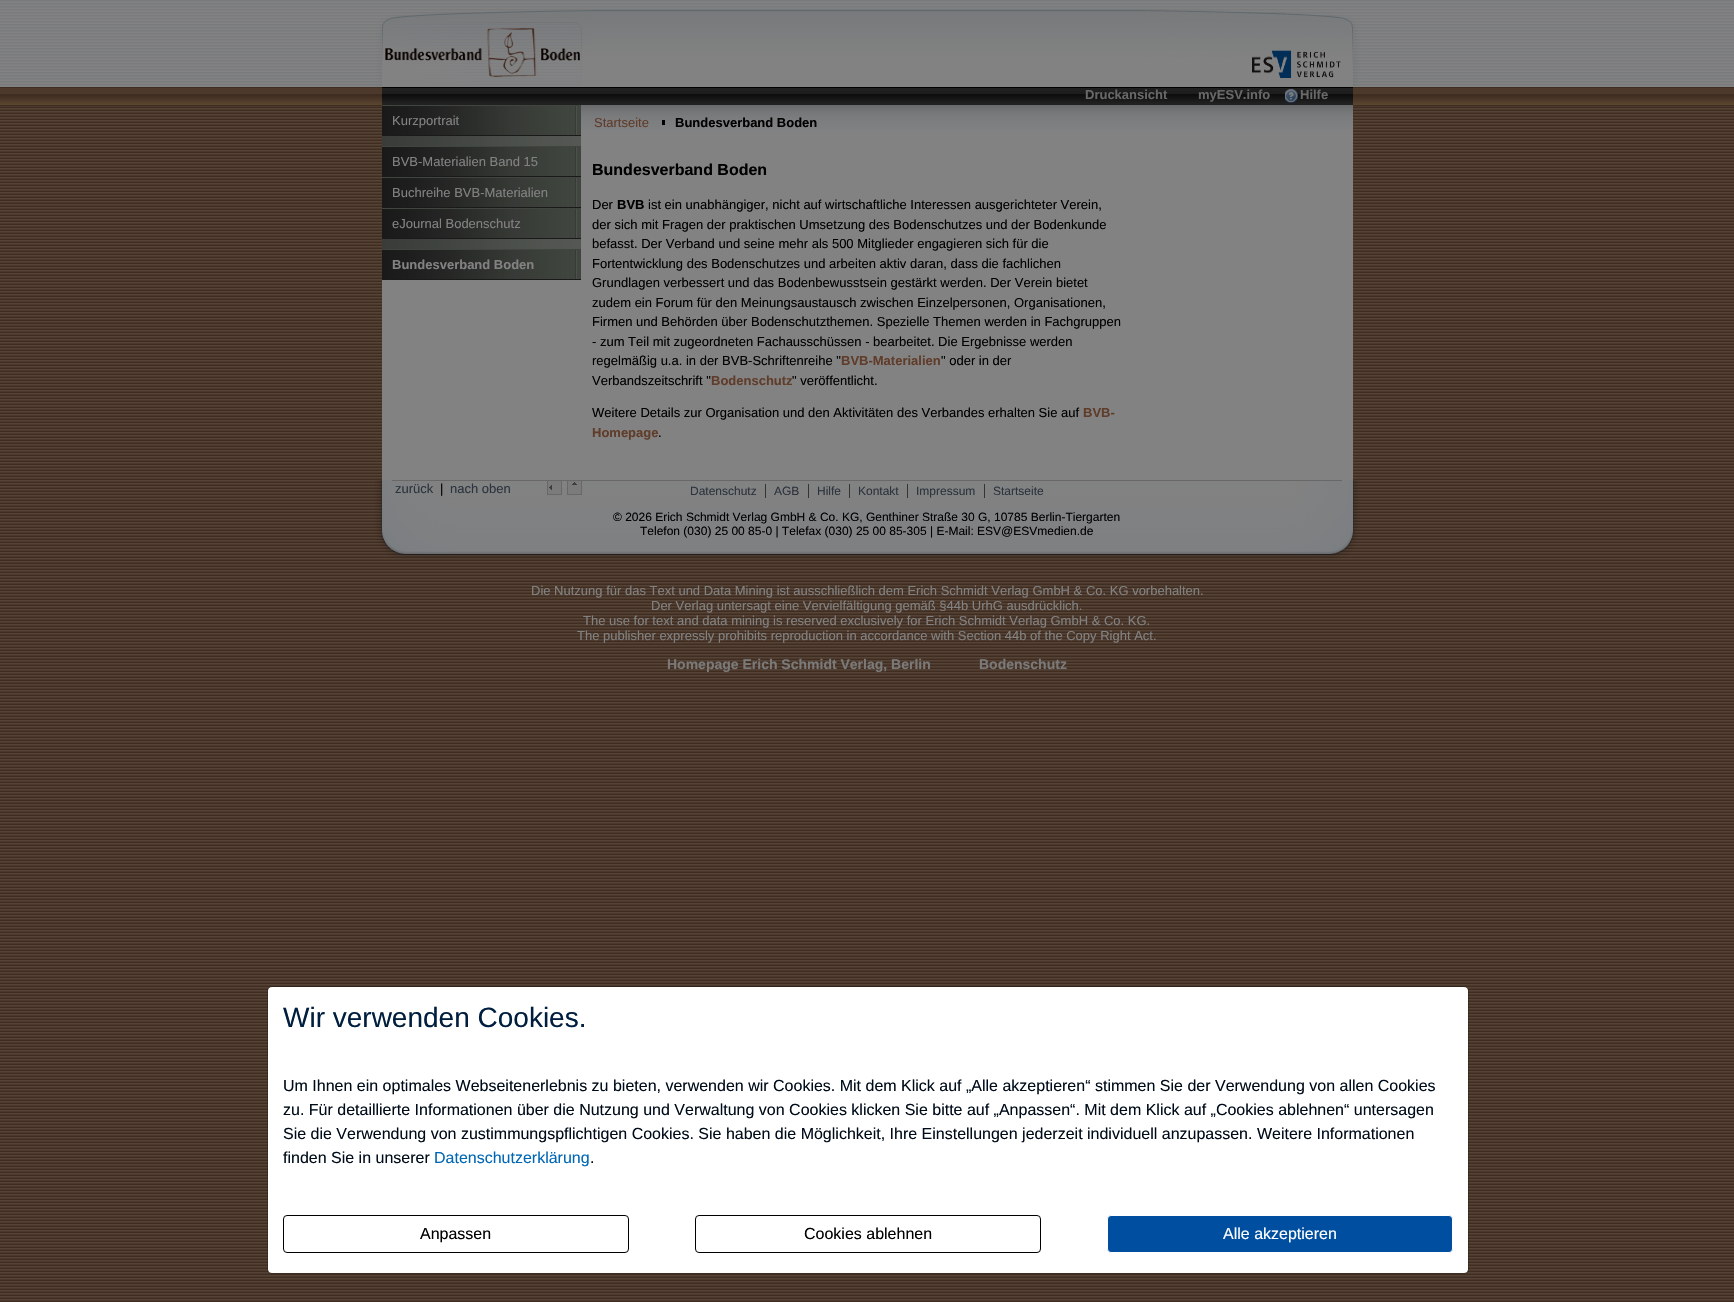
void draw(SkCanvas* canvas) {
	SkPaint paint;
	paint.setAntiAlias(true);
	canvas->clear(0xffffffff);
	canvas->drawImageRect(SkImages::DeferredFromEncodedData(SkData::MakeFromFileName("img1.png")), SkRect::MakeXYWH(0, 106, 1734, 1196), SkSamplingOptions());
	canvas->drawImageRect(SkImages::DeferredFromEncodedData(SkData::MakeFromFileName("img2.png")), SkRect::MakeXYWH(0, 0, 1734, 106), SkSamplingOptions());
	canvas->drawImageRect(SkImages::DeferredFromEncodedData(SkData::MakeFromFileName("img3.png")), SkRect::MakeXYWH(592, 8, 554, 78), SkSamplingOptions());
	canvas->drawImageRect(SkImages::DeferredFromEncodedData(SkData::MakeFromFileName("img4.png")), SkRect::MakeXYWH(1146, 8, 216, 79), SkSamplingOptions());
	canvas->drawImageRect(SkImages::DeferredFromEncodedData(SkData::MakeFromFileName("img5.png")), SkRect::MakeXYWH(372, 8, 220, 79), SkSamplingOptions());
	canvas->drawImageRect(SkImages::DeferredFromEncodedData(SkData::MakeFromFileName("img6.png")), SkRect::MakeXYWH(385, 28, 195, 49), SkSamplingOptions());
	canvas->drawImageRect(SkImages::DeferredFromEncodedData(SkData::MakeFromFileName("img7.png")), SkRect::MakeXYWH(1252, 50, 89, 28), SkSamplingOptions());
	paint.setColor(0xff000000);
	canvas->drawRect(SkRect::MakeXYWH(382, 87, 971, 1), paint);
	canvas->drawImageRect(SkImages::DeferredFromEncodedData(SkData::MakeFromFileName("img8.png")), SkRect::MakeXYWH(382, 88, 971, 17), SkSamplingOptions());
	SkFont f1(fontMgr->matchFamilyStyle("Liberation Sans", SkFontStyle::Bold()), 13);
	f1.setSubpixel(true);
	paint.setColor(0xff686868);
	canvas->drawString("Druckansicht", 1085, 99, f1, paint);
	canvas->drawString("myESV.info", 1198, 99, f1, paint);
	canvas->drawImageRect(SkImages::DeferredFromEncodedData(SkData::MakeFromFileName("img9.png")), SkRect::MakeXYWH(1285, 89, 13, 14), SkSamplingOptions());
	canvas->drawString("Hilfe", 1300, 99, f1, paint);
	paint.setColor(0xff828282);
	canvas->drawRect(SkRect::MakeXYWH(382, 130, 971, 350), paint);
	canvas->drawImageRect(SkImages::DeferredFromEncodedData(SkData::MakeFromFileName("img10.png")), SkRect::MakeXYWH(382, 136, 199, 113), SkSamplingOptions());
	paint.setColor(0xff40453f);
	canvas->drawRect(SkRect::MakeXYWH(577, 106, 4, 29), paint);
	canvas->drawImageRect(SkImages::DeferredFromEncodedData(SkData::MakeFromFileName("img11.png")), SkRect::MakeXYWH(382, 106, 195, 29), SkSamplingOptions());
	canvas->drawRect(SkRect::MakeXYWH(382, 105, 199, 1), paint);
	paint.setColor(0xff1a1a1a);
	canvas->drawRect(SkRect::MakeXYWH(382, 135, 199, 1), paint);
	SkFont f2(fontMgr->matchFamilyStyle("Liberation Sans", SkFontStyle::Normal()), 13);
	f2.setSubpixel(true);
	paint.setColor(0xff828282);
	canvas->drawString("Kurzportrait", 392, 125, f2, paint);
	paint.setColor(0xff40453f);
	canvas->drawRect(SkRect::MakeXYWH(577, 147, 4, 29), paint);
	canvas->drawImageRect(SkImages::DeferredFromEncodedData(SkData::MakeFromFileName("img11.png")), SkRect::MakeXYWH(382, 147, 195, 29), SkSamplingOptions());
	canvas->drawRect(SkRect::MakeXYWH(382, 146, 199, 1), paint);
	paint.setColor(0xff1a1a1a);
	canvas->drawRect(SkRect::MakeXYWH(382, 176, 199, 1), paint);
	paint.setColor(0xff828282);
	canvas->drawString("BVB-Materialien Band 15", 392, 166, f2, paint);
	paint.setColor(0xff40453f);
	canvas->drawRect(SkRect::MakeXYWH(577, 178, 4, 29), paint);
	canvas->drawImageRect(SkImages::DeferredFromEncodedData(SkData::MakeFromFileName("img11.png")), SkRect::MakeXYWH(382, 178, 195, 29), SkSamplingOptions());
	canvas->drawRect(SkRect::MakeXYWH(382, 177, 199, 1), paint);
	paint.setColor(0xff1a1a1a);
	canvas->drawRect(SkRect::MakeXYWH(382, 207, 199, 1), paint);
	paint.setColor(0xff828282);
	canvas->drawString("Buchreihe BVB-Materialien", 392, 197, f2, paint);
	paint.setColor(0xff40453f);
	canvas->drawRect(SkRect::MakeXYWH(577, 209, 4, 29), paint);
	canvas->drawImageRect(SkImages::DeferredFromEncodedData(SkData::MakeFromFileName("img11.png")), SkRect::MakeXYWH(382, 209, 195, 29), SkSamplingOptions());
	canvas->drawRect(SkRect::MakeXYWH(382, 208, 199, 1), paint);
	paint.setColor(0xff1a1a1a);
	canvas->drawRect(SkRect::MakeXYWH(382, 238, 199, 1), paint);
	paint.setColor(0xff828282);
	canvas->drawString("eJournal Bodenschutz", 392, 228, f2, paint);
	paint.setColor(0xff40453f);
	canvas->drawRect(SkRect::MakeXYWH(577, 250, 4, 29), paint);
	canvas->drawImageRect(SkImages::DeferredFromEncodedData(SkData::MakeFromFileName("img11.png")), SkRect::MakeXYWH(382, 250, 195, 29), SkSamplingOptions());
	canvas->drawRect(SkRect::MakeXYWH(382, 249, 199, 1), paint);
	paint.setColor(0xff1a1a1a);
	canvas->drawRect(SkRect::MakeXYWH(382, 279, 199, 1), paint);
	paint.setColor(0xff828282);
	canvas->drawString("Bundesverband Boden", 392, 269, f1, paint);
	canvas->drawImageRect(SkImages::DeferredFromEncodedData(SkData::MakeFromFileName("img12.png")), SkRect::MakeXYWH(581, 105, 772, 25), SkSamplingOptions());
	paint.setColor(0xff603c2a);
	canvas->drawString("Startseite", 594, 127, f2, paint);
	paint.setColor(0xff000000);
	canvas->drawRect(SkRect::MakeXYWH(662, 120, 3, 5), paint);
	canvas->drawString("Bundesverband Boden", 675, 127, f1, paint);
	SkFont f3(fontMgr->matchFamilyStyle("Liberation Sans", SkFontStyle::Bold()), 16);
	f3.setSubpixel(true);
	canvas->drawString("Bundesverband Boden", 592, 175, f3, paint);
	canvas->drawString("Der", 592, 209, f2, paint);
	canvas->drawString("BVB", 617, 209, f1, paint);
	canvas->drawString("ist ein unabhängiger, nicht auf wirtschaftliche Interessen ausgerichteter Verein,", 648, 209, f2, paint);
	canvas->drawString("der sich mit Fragen der praktischen Umsetzung des Bodenschutzes und der Bodenkunde", 592, 229, f2, paint);
	canvas->drawString("befasst. Der Verband und seine mehr als 500 Mitglieder engagieren sich für die", 592, 248, f2, paint);
	canvas->drawString("Fortentwicklung des Bodenschutzes und arbeiten aktiv daran, dass die fachlichen", 592, 268, f2, paint);
	canvas->drawString("Grundlagen verbessert und das Bodenbewusstsein gestärkt werden. Der Verein bietet", 592, 287, f2, paint);
	canvas->drawString("zudem ein Forum für den Meinungsaustausch zwischen Einzelpersonen, Organisationen,", 592, 307, f2, paint);
	canvas->drawString("Firmen und Behörden über Bodenschutzthemen. Spezielle Themen werden in Fachgruppen", 592, 326, f2, paint);
	canvas->drawString("- zum Teil mit zugeordneten Fachausschüssen - bearbeitet. Die Ergebnisse werden", 592, 346, f2, paint);
	canvas->drawString("regelmäßig u.a. in der BVB-Schriftenreihe \"", 592, 365, f2, paint);
	paint.setColor(0xff603c2a);
	canvas->drawString("BVB-Materialien", 841, 365, f1, paint);
	paint.setColor(0xff000000);
	canvas->drawString("\" oder in der", 941, 365, f2, paint);
	canvas->drawString("Verbandszeitschrift \"", 592, 385, f2, paint);
	paint.setColor(0xff603c2a);
	canvas->drawString("Bodenschutz", 711, 385, f1, paint);
	paint.setColor(0xff000000);
	canvas->drawString("\" veröffentlicht.", 792, 385, f2, paint);
	canvas->drawString("Weitere Details zur Organisation und den Aktivitäten des Verbandes erhalten Sie auf", 592, 417, f2, paint);
	paint.setColor(0xff603c2a);
	canvas->drawString("BVB-", 1083, 417, f1, paint);
	canvas->drawString("Homepage", 592, 437, f1, paint);
	paint.setColor(0xff000000);
	canvas->drawString(".", 658, 437, f2, paint);
	canvas->drawImageRect(SkImages::DeferredFromEncodedData(SkData::MakeFromFileName("img13.png")), SkRect::MakeXYWH(375, 480, 81, 80), SkSamplingOptions());
	canvas->drawImageRect(SkImages::DeferredFromEncodedData(SkData::MakeFromFileName("img14.png")), SkRect::MakeXYWH(1279, 480, 81, 80), SkSamplingOptions());
	paint.setColor(0xff2b343d);
	canvas->drawString("zurück", 395, 493, f2, paint);
	paint.setColor(0xff000000);
	canvas->drawString("|", 440, 493, f2, paint);
	canvas->drawImageRect(SkImages::DeferredFromEncodedData(SkData::MakeFromFileName("img17.png")), SkRect::MakeXYWH(456, 481, 823, 79), SkSamplingOptions());
	paint.setColor(0xff2b343d);
	canvas->drawString("nach oben", 450, 493, f2, paint);
	canvas->drawImageRect(SkImages::DeferredFromEncodedData(SkData::MakeFromFileName("img15.png")), SkRect::MakeXYWH(547, 481, 15, 14), SkSamplingOptions());
	canvas->drawImageRect(SkImages::DeferredFromEncodedData(SkData::MakeFromFileName("img16.png")), SkRect::MakeXYWH(567, 481, 15, 14), SkSamplingOptions());
	paint.setColor(0xff686868);
	canvas->drawRect(SkRect::MakeXYWH(392, 480, 950, 1), paint);
	SkFont f4(fontMgr->matchFamilyStyle("Liberation Sans", SkFontStyle::Normal()), 12);
	f4.setSubpixel(true);
	paint.setColor(0xff2b343d);
	canvas->drawString("Datenschutz", 690, 495, f4, paint);
	paint.setColor(0xff343434);
	canvas->drawRect(SkRect::MakeXYWH(765, 484, 1, 14), paint);
	paint.setColor(0xff2b343d);
	canvas->drawString("AGB", 774, 495, f4, paint);
	paint.setColor(0xff343434);
	canvas->drawRect(SkRect::MakeXYWH(808, 484, 1, 14), paint);
	paint.setColor(0xff2b343d);
	canvas->drawString("Hilfe", 817, 495, f4, paint);
	paint.setColor(0xff343434);
	canvas->drawRect(SkRect::MakeXYWH(849, 484, 1, 14), paint);
	paint.setColor(0xff2b343d);
	canvas->drawString("Kontakt", 858, 495, f4, paint);
	paint.setColor(0xff343434);
	canvas->drawRect(SkRect::MakeXYWH(907, 484, 1, 14), paint);
	paint.setColor(0xff2b343d);
	canvas->drawString("Impressum", 916, 495, f4, paint);
	paint.setColor(0xff343434);
	canvas->drawRect(SkRect::MakeXYWH(984, 484, 1, 14), paint);
	paint.setColor(0xff2b343d);
	canvas->drawString("Startseite", 993, 495, f4, paint);
	paint.setColor(0xff000000);
	canvas->drawString("© 2026 Erich Schmidt Verlag GmbH & Co. KG, Genthiner Straße 30 G, 10785 Berlin-Tiergarten", 613, 521, f4, paint);
	canvas->drawString("Telefon (030) 25 00 85-0 | Telefax (030) 25 00 85-305 | E-Mail: ESV@ESVmedien.de", 640, 535, f4, paint);
	paint.setColor(0xff828282);
	canvas->drawString("Die Nutzung für das Text und Data Mining ist ausschließlich dem Erich Schmidt Verlag GmbH & Co. KG vorbehalten.", 531, 595, f2, paint);
	canvas->drawString("Der Verlag untersagt eine Vervielfältigung gemäß §44b UrhG ausdrücklich.", 651, 610, f2, paint);
	canvas->drawString("The use for text and data mining is reserved exclusively for Erich Schmidt Verlag GmbH & Co. KG.", 583, 625, f2, paint);
	canvas->drawString("The publisher expressly prohibits reproduction in accordance with Section 44b of the Copy Right Act.", 577, 640, f2, paint);
	SkFont f5(fontMgr->matchFamilyStyle("Liberation Sans", SkFontStyle::Bold()), 14);
	f5.setSubpixel(true);
	paint.setColor(0xff7a7a7a);
	canvas->drawString("Homepage Erich Schmidt Verlag, Berlin", 667, 669, f5, paint);
	canvas->drawString("Bodenschutz", 979, 669, f5, paint);
	paint.setColor(0xffffffff);
	canvas->drawRoundRect(SkRect::MakeXYWH(268, 987, 1200, 286), 4, 4, paint);
	paint.setStroke(true);
	paint.setStrokeWidth(1);
	paint.setColor(0x33000000);
	canvas->drawRoundRect(SkRect::MakeXYWH(267.5, 986.5, 1201, 287), 4.5, 4.5, paint);
	SkFont f6(fontMgr->matchFamilyStyle("Liberation Sans", SkFontStyle::Normal()), 28);
	f6.setSubpixel(true);
	paint.setStroke(false);
	paint.setColor(0xff001e3e);
	canvas->drawString("Wir verwenden Cookies.", 283, 1027, f6, paint);
	SkFont f7(fontMgr->matchFamilyStyle("Liberation Sans", SkFontStyle::Normal()), 16);
	f7.setSubpixel(true);
	paint.setColor(0xff000c19);
	canvas->drawString("Um Ihnen ein optimales Webseitenerlebnis zu bieten, verwenden wir Cookies. Mit dem Klick auf „Alle akzeptieren“ stimmen Sie der Verwendung von allen Cookies", 283, 1091, f7, paint);
	canvas->drawString("zu. Für detaillierte Informationen über die Nutzung und Verwaltung von Cookies klicken Sie bitte auf „Anpassen“. Mit dem Klick auf „Cookies ablehnen“ untersagen", 283, 1115, f7, paint);
	canvas->drawString("Sie die Verwendung von zustimmungspflichtigen Cookies. Sie haben die Möglichkeit, Ihre Einstellungen jederzeit individuell anzupassen. Weitere Informationen", 283, 1139, f7, paint);
	canvas->drawString("finden Sie in unserer", 283, 1163, f7, paint);
	paint.setColor(0xff0067b5);
	canvas->drawString("Datenschutzerklärung", 434, 1163, f7, paint);
	paint.setColor(0xff000c19);
	canvas->drawString(".", 590, 1163, f7, paint);
	paint.setStroke(true);
	paint.setColor(0xff000000);
	canvas->drawRoundRect(SkRect::MakeXYWH(283.5, 1215.5, 345, 37), 3.5, 3.5, paint);
	paint.setStroke(false);
	canvas->drawString("Anpassen", 420, 1239, f7, paint);
	paint.setStroke(true);
	canvas->drawRoundRect(SkRect::MakeXYWH(695.5, 1215.5, 345, 37), 3.5, 3.5, paint);
	paint.setStroke(false);
	canvas->drawString("Cookies ablehnen", 804, 1239, f7, paint);
	paint.setColor(0xff004e9f);
	canvas->drawRoundRect(SkRect::MakeXYWH(1107.5, 1215.5, 345, 37), 3.5, 3.5, paint);
	paint.setStroke(true);
	paint.setColor(0xffffffff);
	canvas->drawRoundRect(SkRect::MakeXYWH(1107.5, 1215.5, 345, 37), 3.5, 3.5, paint);
	paint.setStroke(false);
	canvas->drawString("Alle akzeptieren", 1223, 1239, f7, paint);
}
